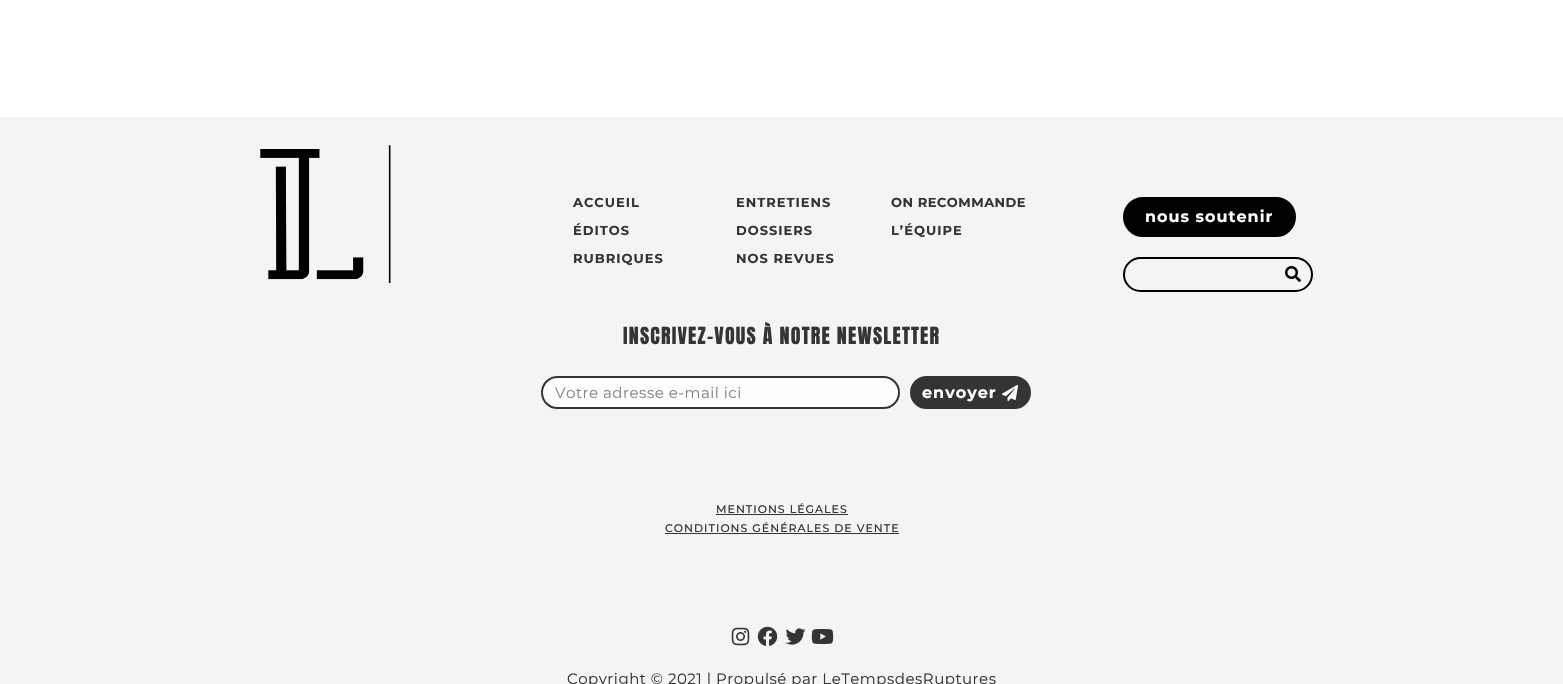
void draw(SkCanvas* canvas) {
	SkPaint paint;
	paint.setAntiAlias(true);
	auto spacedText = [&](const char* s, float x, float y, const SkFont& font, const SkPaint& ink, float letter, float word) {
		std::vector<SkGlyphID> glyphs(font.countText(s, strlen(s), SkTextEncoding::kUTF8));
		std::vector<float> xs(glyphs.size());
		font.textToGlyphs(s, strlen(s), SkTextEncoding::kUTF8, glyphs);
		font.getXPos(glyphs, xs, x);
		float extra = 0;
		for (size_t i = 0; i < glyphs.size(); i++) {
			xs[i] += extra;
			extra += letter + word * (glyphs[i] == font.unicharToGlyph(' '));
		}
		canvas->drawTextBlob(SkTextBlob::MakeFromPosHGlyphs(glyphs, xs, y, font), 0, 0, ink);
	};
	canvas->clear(0xffffffff);
	paint.setColor(0xfff4f4f4);
	canvas->drawRect(SkRect::MakeXYWH(0, 117, 1563, 567), paint);
	canvas->drawImageRect(SkImages::DeferredFromEncodedData(SkData::MakeFromFileName("img1.png")), SkRect::MakeXYWH(260, 145, 131, 138), SkSamplingOptions());
	SkFont f1(fontMgr->matchFamilyStyle("Montserrat", SkFontStyle::Bold()), 13);
	f1.setSubpixel(true);
	paint.setColor(0xff343434);
	spacedText("ACCUEIL", 573, 207, f1, paint, 1, 0);
	spacedText("ÉDITOS", 573, 235, f1, paint, 1, 0);
	spacedText("RUBRIQUES", 573, 263, f1, paint, 1, 0);
	spacedText("ENTRETIENS", 736, 207, f1, paint, 1, 0);
	spacedText("DOSSIERS", 736, 235, f1, paint, 1, 0);
	spacedText("NOS REVUES", 736, 263, f1, paint, 1, 0);
	spacedText("ON RECOMMANDE", 891, 207, f1, paint, 0.5, 0);
	spacedText("L’ÉQUIPE", 891, 235, f1, paint, 1, 0);
	SkFont f2(fontMgr->matchFamilyStyle("Anton", SkFontStyle::Normal()), 20);
	f2.setSubpixel(true);
	spacedText("INSCRIVEZ-VOUS À NOTRE NEWSLETTER", 623, 344, f2, paint, 1.2, 0);
	paint.setColor(0xfffdfdfd);
	canvas->drawRoundRect(SkRect::MakeXYWH(542, 377, 357, 31), 15.5, 15.5, paint);
	paint.setStroke(true);
	paint.setStrokeWidth(2);
	paint.setColor(0xff343434);
	canvas->drawRoundRect(SkRect::MakeXYWH(542, 377, 357, 31), 15.5, 15.5, paint);
	SkFont f3(fontMgr->matchFamilyStyle("Montserrat", SkFontStyle::Normal()), 15);
	f3.setSubpixel(true);
	paint.setStroke(false);
	paint.setColor(0xff848484);
	spacedText("Votre adresse e-mail ici", 555, 398, f3, paint, 0.5, 0);
	paint.setColor(0xff343434);
	canvas->drawRoundRect(SkRect::MakeXYWH(911, 377, 119, 31), 15.5, 15.5, paint);
	paint.setStroke(true);
	canvas->drawRoundRect(SkRect::MakeXYWH(911, 377, 119, 31), 15.5, 15.5, paint);
	SkFont f4(fontMgr->matchFamilyStyle("Montserrat", SkFontStyle::Bold()), 16);
	f4.setSubpixel(true);
	paint.setStroke(false);
	paint.setColor(0xffffffff);
	spacedText("envoyer", 922, 398, f4, paint, 1, 0);
	canvas->drawImageRect(SkImages::DeferredFromEncodedData(SkData::MakeFromFileName("img2.png")), SkRect::MakeXYWH(1002, 385, 16, 16), SkSamplingOptions());
	SkFont f5(fontMgr->matchFamilyStyle("Montserrat", SkFontStyle(500, SkFontStyle::kNormal_Width, SkFontStyle::kUpright_Slant)), 11);
	f5.setSubpixel(true);
	paint.setColor(0xff343434);
	spacedText("MENTIONS LÉGALES", 716, 513, f5, paint, 1, 0);
	canvas->drawRect(SkRect::MakeXYWH(716, 514, 132, 1), paint);
	spacedText("CONDITIONS GÉNÉRALES DE VENTE", 665, 532, f5, paint, 1, 0);
	canvas->drawRect(SkRect::MakeXYWH(665, 533, 234, 1), paint);
	canvas->drawImageRect(SkImages::DeferredFromEncodedData(SkData::MakeFromFileName("img3.png")), SkRect::MakeXYWH(731, 627, 19, 19), SkSamplingOptions());
	canvas->drawImageRect(SkImages::DeferredFromEncodedData(SkData::MakeFromFileName("img4.png")), SkRect::MakeXYWH(757, 626, 21, 20), SkSamplingOptions());
	canvas->drawImageRect(SkImages::DeferredFromEncodedData(SkData::MakeFromFileName("img5.png")), SkRect::MakeXYWH(785, 628, 21, 17), SkSamplingOptions());
	canvas->drawImageRect(SkImages::DeferredFromEncodedData(SkData::MakeFromFileName("img6.png")), SkRect::MakeXYWH(811, 629, 23, 15), SkSamplingOptions());
	spacedText("Copyright © 2021 | Propulsé par LeTempsdesRuptures", 567, 684, f3, paint, 0.5, 0);
	paint.setColor(0xff000000);
	canvas->drawRoundRect(SkRect::MakeXYWH(1124, 198, 171, 38), 19, 19, paint);
	paint.setStroke(true);
	canvas->drawRoundRect(SkRect::MakeXYWH(1124, 198, 171, 38), 19, 19, paint);
	paint.setStroke(false);
	paint.setColor(0xffffffff);
	spacedText("nous soutenir", 1145, 222, f4, paint, 1, 0);
	paint.setStroke(true);
	paint.setColor(0xff000000);
	canvas->drawRoundRect(SkRect::MakeXYWH(1124, 258, 188, 33), 16.5, 16.5, paint);
	canvas->drawImageRect(SkImages::DeferredFromEncodedData(SkData::MakeFromFileName("img7.png")), SkRect::MakeXYWH(1285, 266, 16, 16), SkSamplingOptions());
}
